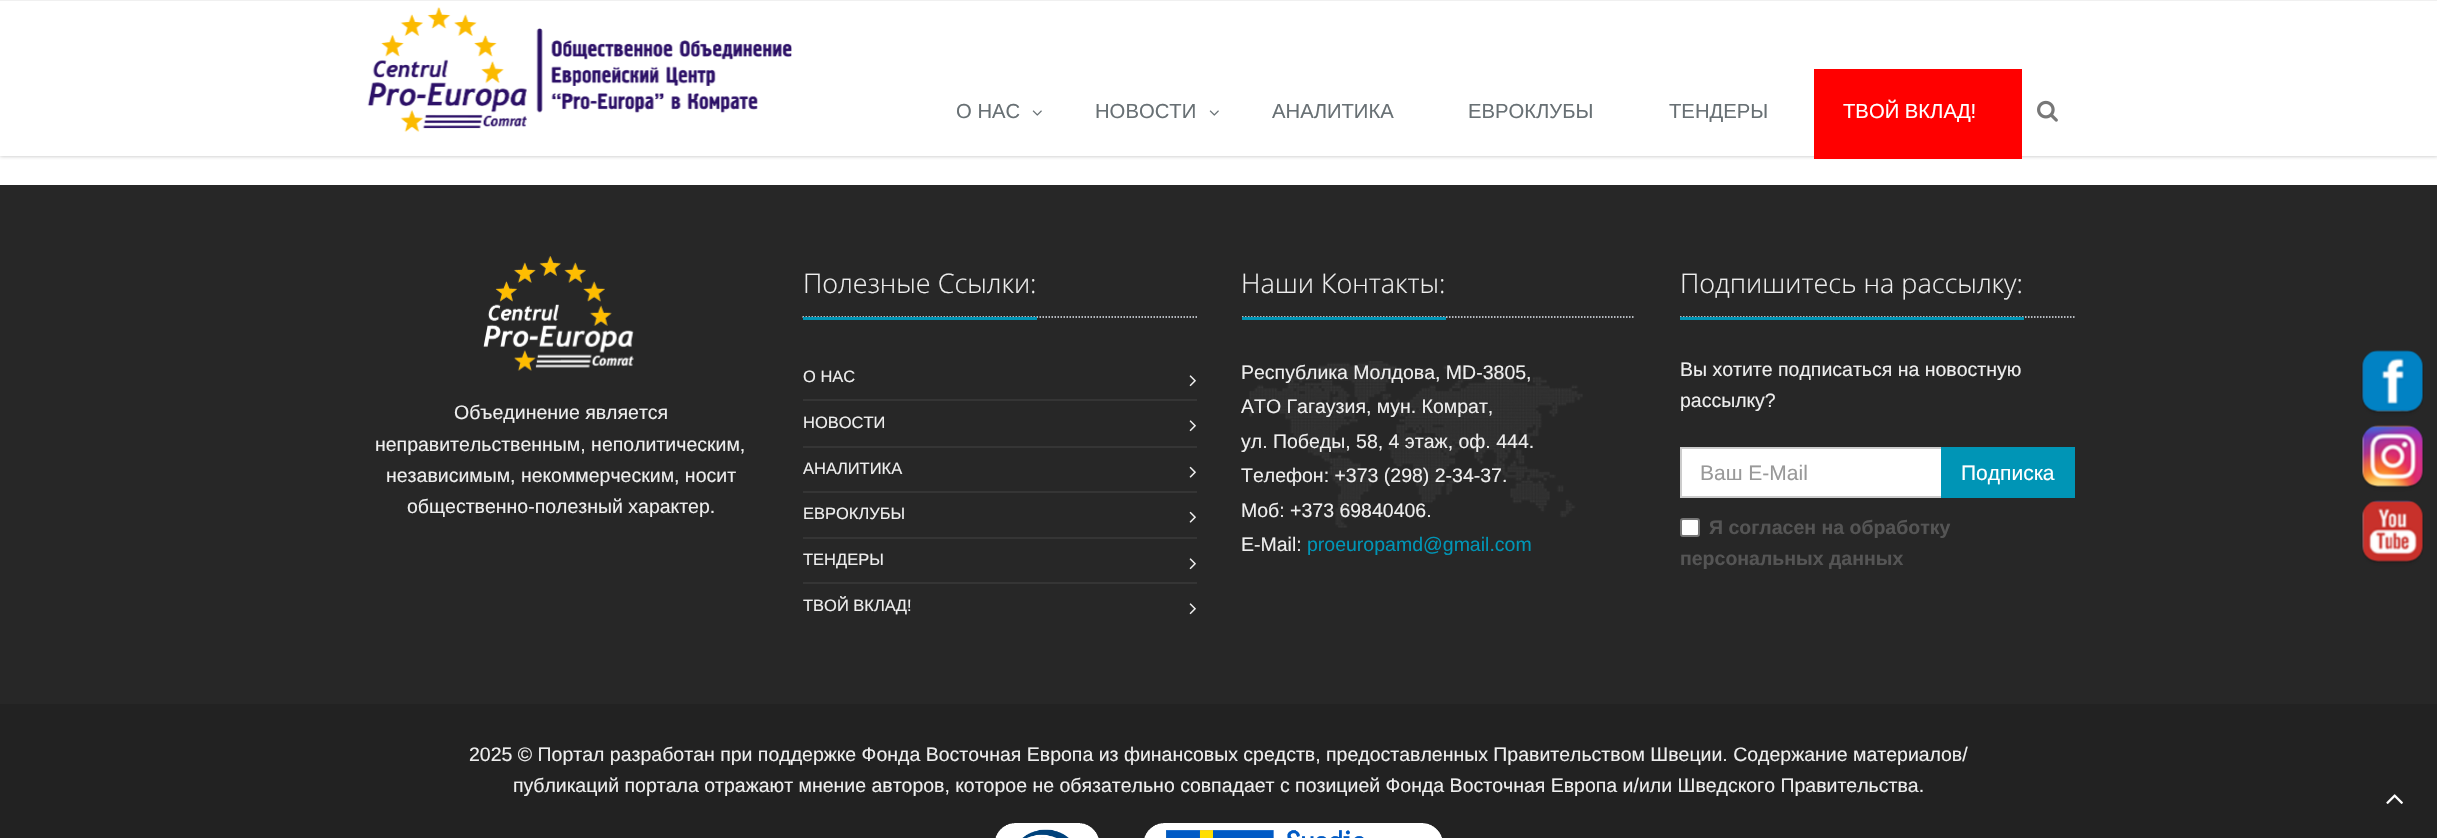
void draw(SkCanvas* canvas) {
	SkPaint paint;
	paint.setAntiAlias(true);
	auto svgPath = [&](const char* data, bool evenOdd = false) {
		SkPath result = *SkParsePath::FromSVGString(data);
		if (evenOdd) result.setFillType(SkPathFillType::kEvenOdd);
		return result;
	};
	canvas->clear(0xffffffff);
	canvas->save();
	canvas->clipRect(SkRect::MakeXYWH(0, 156, 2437, 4));
	paint.setColor(0xffbbbbbb);
	paint.setMaskFilter(SkMaskFilter::MakeBlur(kNormal_SkBlurStyle, 2));
	canvas->drawRect(SkRect::MakeXYWH(0, -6, 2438, 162), paint);
	paint.setMaskFilter(nullptr);
	canvas->restore();
	paint.setColor(0xfff0f0f0);
	canvas->drawRect(SkRect::MakeXYWH(0, 0, 2437, 1), paint);
	canvas->drawImageRect(SkImages::DeferredFromEncodedData(SkData::MakeFromFileName("img1.png")), SkRect::MakeXYWH(367, 7, 425, 125), SkSamplingOptions());
	SkFont f1(fontMgr->matchFamilyStyle("Liberation Sans", SkFontStyle::Normal()), 20.25);
	f1.setSubpixel(true);
	paint.setColor(0xff687074);
	canvas->drawString("О НАС", 956, 118, f1, paint);
	canvas->drawImageRect(SkImages::DeferredFromEncodedData(SkData::MakeFromFileName("img2.png")), SkRect::MakeXYWH(1032, 110, 10, 6), SkSamplingOptions());
	canvas->drawString("НОВОСТИ", 1095, 118, f1, paint);
	canvas->drawImageRect(SkImages::DeferredFromEncodedData(SkData::MakeFromFileName("img2.png")), SkRect::MakeXYWH(1209, 110, 10, 6), SkSamplingOptions());
	canvas->drawString("АНАЛИТИКА", 1272, 118, f1, paint);
	canvas->drawString("ЕВРОКЛУБЫ", 1468, 118, f1, paint);
	canvas->drawString("ТЕНДЕРЫ", 1669, 118, f1, paint);
	paint.setColor(0xffff0000);
	canvas->drawRect(SkRect::MakeXYWH(1814, 69, 208, 90), paint);
	paint.setColor(0xffffffff);
	canvas->drawString("ТВОЙ ВКЛАД!", 1843, 118, f1, paint);
	canvas->drawImageRect(SkImages::DeferredFromEncodedData(SkData::MakeFromFileName("img3.png")), SkRect::MakeXYWH(2037, 100, 21, 22), SkSamplingOptions());
	paint.setColor(0xff272727);
	canvas->drawRect(SkRect::MakeXYWH(0, 185, 2437, 519), paint);
	canvas->drawImageRect(SkImages::DeferredFromEncodedData(SkData::MakeFromFileName("img4.png")), SkRect::MakeXYWH(483, 256, 151, 115), SkSamplingOptions());
	SkFont f2(fontMgr->matchFamilyStyle("Liberation Sans", SkFontStyle::Normal()), 19.5);
	f2.setSubpixel(true);
	paint.setColor(0xffeeeeee);
	canvas->drawString("Объединение является", 454, 419, f2, paint);
	canvas->drawString("неправительственным, неполитическим,", 375, 451, f2, paint);
	canvas->drawString("независимым, некоммерческим, носит", 386, 482, f2, paint);
	canvas->drawString("общественно-полезный характер.", 407, 513, f2, paint);
	paint.setStroke(true);
	paint.setStrokeWidth(1.5);
	paint.setColor(0xffe4e9f0);
	paint.setPathEffect(SkDashPathEffect::Make({{1.5f, 1.5f}}, 0));
	canvas->drawPath(svgPath("M802.5 317H1197"), paint);
	paint.setPathEffect(nullptr);
	paint.setStroke(false);
	paint.setColor(0xff0095b6);
	canvas->drawRect(SkRect::MakeXYWH(803, 317, 234, 3), paint);
	SkFont f3(fontMgr->matchFamilyStyle("Open Sans", SkFontStyle(300, SkFontStyle::kNormal_Width, SkFontStyle::kUpright_Slant)), 27);
	f3.setSubpixel(true);
	paint.setColor(0xffeeeeee);
	canvas->drawString("Полезные Ссылки:", 803, 293, f3, paint);
	SkFont f4(fontMgr->matchFamilyStyle("Liberation Sans", SkFontStyle::Normal()), 16.5);
	f4.setSubpixel(true);
	canvas->drawString("О НАС", 803, 382, f4, paint);
	canvas->drawImageRect(SkImages::DeferredFromEncodedData(SkData::MakeFromFileName("img5.png")), SkRect::MakeXYWH(1189, 375, 7, 12), SkSamplingOptions());
	paint.setColor(0xff353535);
	canvas->drawRect(SkRect::MakeXYWH(803, 399, 394, 2), paint);
	paint.setColor(0xffeeeeee);
	canvas->drawString("НОВОСТИ", 803, 428, f4, paint);
	canvas->drawImageRect(SkImages::DeferredFromEncodedData(SkData::MakeFromFileName("img5.png")), SkRect::MakeXYWH(1189, 420, 7, 12), SkSamplingOptions());
	paint.setColor(0xff353535);
	canvas->drawRect(SkRect::MakeXYWH(803, 446, 394, 2), paint);
	paint.setColor(0xffeeeeee);
	canvas->drawString("АНАЛИТИКА", 803, 474, f4, paint);
	canvas->drawImageRect(SkImages::DeferredFromEncodedData(SkData::MakeFromFileName("img6.png")), SkRect::MakeXYWH(1189, 466, 7, 12), SkSamplingOptions());
	paint.setColor(0xff353535);
	canvas->drawRect(SkRect::MakeXYWH(803, 491, 394, 2), paint);
	paint.setColor(0xffeeeeee);
	canvas->drawString("ЕВРОКЛУБЫ", 803, 519, f4, paint);
	canvas->drawImageRect(SkImages::DeferredFromEncodedData(SkData::MakeFromFileName("img6.png")), SkRect::MakeXYWH(1189, 511, 7, 12), SkSamplingOptions());
	paint.setColor(0xff353535);
	canvas->drawRect(SkRect::MakeXYWH(803, 537, 394, 2), paint);
	paint.setColor(0xffeeeeee);
	canvas->drawString("ТЕНДЕРЫ", 803, 565, f4, paint);
	canvas->drawImageRect(SkImages::DeferredFromEncodedData(SkData::MakeFromFileName("img5.png")), SkRect::MakeXYWH(1189, 558, 7, 12), SkSamplingOptions());
	paint.setColor(0xff353535);
	canvas->drawRect(SkRect::MakeXYWH(803, 582, 394, 2), paint);
	paint.setColor(0xffeeeeee);
	canvas->drawString("ТВОЙ ВКЛАД!", 803, 611, f4, paint);
	canvas->drawImageRect(SkImages::DeferredFromEncodedData(SkData::MakeFromFileName("img5.png")), SkRect::MakeXYWH(1189, 603, 7, 12), SkSamplingOptions());
	canvas->drawImageRect(SkImages::DeferredFromEncodedData(SkData::MakeFromFileName("img7.png")), SkRect::MakeXYWH(1249, 361, 334, 167), SkSamplingOptions());
	paint.setStroke(true);
	paint.setColor(0xffe4e9f0);
	paint.setPathEffect(SkDashPathEffect::Make({{1.5f, 1.5f}}, 0));
	canvas->drawPath(svgPath("M1242 317H1635"), paint);
	paint.setPathEffect(nullptr);
	paint.setStroke(false);
	paint.setColor(0xff0095b6);
	canvas->drawRect(SkRect::MakeXYWH(1242, 317, 204, 3), paint);
	paint.setColor(0xffeeeeee);
	canvas->drawString("Наши Контакты:", 1241, 293, f3, paint);
	canvas->drawString("Республика Молдова, MD-3805,", 1241, 379, f2, paint);
	canvas->drawString("АТО Гагаузия, мун. Комрат,", 1241, 413, f2, paint);
	canvas->drawString("ул. Победы, 58, 4 этаж, оф. 444.", 1241, 448, f2, paint);
	canvas->drawString("Телефон: +373 (298) 2-34-37.", 1241, 482, f2, paint);
	canvas->drawString("Моб: +373 69840406.", 1241, 517, f2, paint);
	canvas->drawString("E-Mail:", 1241, 551, f2, paint);
	paint.setColor(0xff0095b6);
	canvas->drawString("proeuropamd@gmail.com", 1307, 551, f2, paint);
	paint.setStroke(true);
	paint.setColor(0xffe4e9f0);
	paint.setPathEffect(SkDashPathEffect::Make({{1.5f, 1.5f}}, 0));
	canvas->drawPath(svgPath("M1680 317H2074.5"), paint);
	paint.setPathEffect(nullptr);
	paint.setStroke(false);
	paint.setColor(0xff0095b6);
	canvas->drawRect(SkRect::MakeXYWH(1680, 317, 344, 3), paint);
	paint.setColor(0xffeeeeee);
	canvas->drawString("Подпишитесь на рассылку:", 1680, 293, f3, paint);
	canvas->drawString("Вы хотите подписаться на новостную", 1680, 376, f2, paint);
	canvas->drawString("рассылку?", 1680, 407, f2, paint);
	paint.setColor(0xffffffff);
	canvas->drawRect(SkRect::MakeXYWH(1681, 448, 261, 49), paint);
	paint.setStroke(true);
	paint.setStrokeWidth(2);
	paint.setColor(0xffcccccc);
	canvas->drawRect(SkRect::MakeXYWH(1681, 448, 261, 49), paint);
	SkFont f5(fontMgr->matchFamilyStyle("Liberation Sans", SkFontStyle::Normal()), 21);
	f5.setSubpixel(true);
	paint.setStroke(false);
	paint.setColor(0xff999999);
	canvas->drawString("Ваш E-Mail", 1700, 480, f5, paint);
	paint.setColor(0xff0095b6);
	canvas->drawRect(SkRect::MakeXYWH(1941, 447, 134, 51), paint);
	paint.setColor(0xffffffff);
	canvas->drawString("Подписка", 1961, 480, f5, paint);
	canvas->drawRoundRect(SkRect::MakeXYWH(1681, 519, 18, 17), 2, 2, paint);
	paint.setStroke(true);
	paint.setColor(0xff767676);
	canvas->drawRoundRect(SkRect::MakeXYWH(1681, 519, 18, 17), 2, 2, paint);
	SkFont f6(fontMgr->matchFamilyStyle("Liberation Sans", SkFontStyle::Bold()), 19.5);
	f6.setSubpixel(true);
	paint.setStroke(false);
	paint.setColor(0xff555555);
	canvas->drawString("Я согласен на обработку", 1709, 534, f6, paint);
	canvas->drawString("персональных данных", 1680, 565, f6, paint);
	paint.setColor(0xff222222);
	canvas->drawRect(SkRect::MakeXYWH(0, 704, 2437, 134), paint);
	paint.setColor(0xffeeeeee);
	canvas->drawString("2025 © Портал разработан при поддержке Фонда Восточная Европа из финансовых средств, предоставленных Правительством Швеции. Содержание материалов/", 469, 761, f2, paint);
	canvas->drawString("публикаций портала отражают мнение авторов, которое не обязательно совпадает с позицией Фонда Восточная Европа и/или Шведского Правительства.", 513, 792, f2, paint);
	canvas->drawImageRect(SkImages::DeferredFromEncodedData(SkData::MakeFromFileName("img8.png")), SkRect::MakeXYWH(995, 823, 447, 15), SkSamplingOptions());
	paint.setColor(0x4d000000);
	paint.setMaskFilter(SkMaskFilter::MakeBlur(kNormal_SkBlurStyle, 3));
	canvas->drawRoundRect(SkRect::MakeXYWH(2367, 360, 51, 51), 11, 11, paint);
	paint.setMaskFilter(nullptr);
	paint.setStroke(true);
	paint.setColor(0x1a000000);
	canvas->drawRoundRect(SkRect::MakeXYWH(2362, 351, 61, 61), 16, 16, paint);
	canvas->drawImageRect(SkImages::DeferredFromEncodedData(SkData::MakeFromFileName("img9.png")), SkRect::MakeXYWH(2362, 350, 61, 62), SkSamplingOptions());
	paint.setStroke(false);
	paint.setColor(0x4d000000);
	paint.setMaskFilter(SkMaskFilter::MakeBlur(kNormal_SkBlurStyle, 3));
	canvas->drawRoundRect(SkRect::MakeXYWH(2367, 435, 51, 51), 11, 11, paint);
	paint.setMaskFilter(nullptr);
	paint.setStroke(true);
	paint.setColor(0x1a000000);
	canvas->drawRoundRect(SkRect::MakeXYWH(2362, 426, 61, 61), 16, 16, paint);
	canvas->drawImageRect(SkImages::DeferredFromEncodedData(SkData::MakeFromFileName("img10.png")), SkRect::MakeXYWH(2362, 425, 61, 62), SkSamplingOptions());
	paint.setStroke(false);
	paint.setColor(0x4d000000);
	paint.setMaskFilter(SkMaskFilter::MakeBlur(kNormal_SkBlurStyle, 3));
	canvas->drawRoundRect(SkRect::MakeXYWH(2367, 510, 51, 51), 11, 11, paint);
	paint.setMaskFilter(nullptr);
	paint.setStroke(true);
	paint.setColor(0x1a000000);
	canvas->drawRoundRect(SkRect::MakeXYWH(2362, 501, 61, 61), 16, 16, paint);
	canvas->drawImageRect(SkImages::DeferredFromEncodedData(SkData::MakeFromFileName("img11.png")), SkRect::MakeXYWH(2362, 500, 61, 62), SkSamplingOptions());
	canvas->drawImageRect(SkImages::DeferredFromEncodedData(SkData::MakeFromFileName("img12.png")), SkRect::MakeXYWH(2386, 794, 17, 10), SkSamplingOptions());
}
